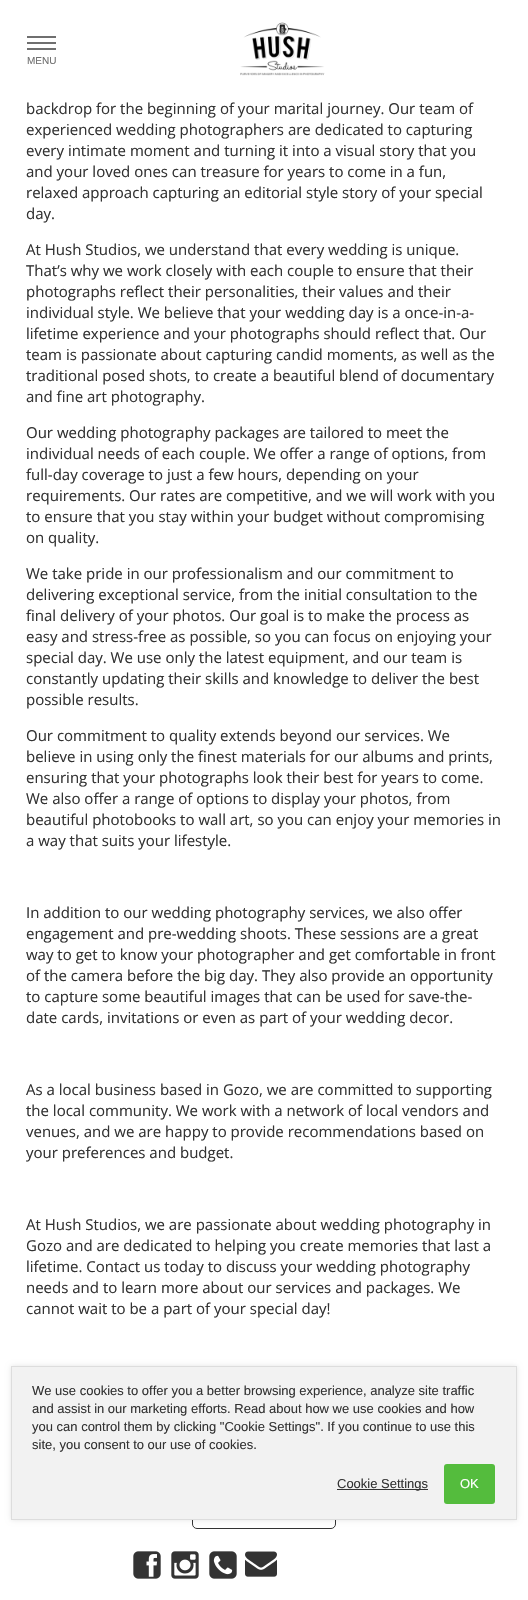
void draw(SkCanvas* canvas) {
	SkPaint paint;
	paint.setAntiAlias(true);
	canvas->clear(0xffffffff);
	paint.setColor(0xff6f6f6f);
	canvas->drawRect(SkRect::MakeXYWH(27, 36, 29, 2), paint);
	canvas->drawRect(SkRect::MakeXYWH(27, 42, 29, 2), paint);
	canvas->drawRect(SkRect::MakeXYWH(27, 48, 29, 2), paint);
	SkFont f1(fontMgr->matchFamilyStyle("Liberation Sans", SkFontStyle::Normal()), 10);
	f1.setSubpixel(true);
	canvas->drawString("MENU", 27, 64, f1, paint);
	canvas->drawImageRect(SkImages::DeferredFromEncodedData(SkData::MakeFromFileName("img1.png")), SkRect::MakeXYWH(240, 22, 85, 54), SkSamplingOptions());
	SkFont f2(fontMgr->matchFamilyStyle("Open Sans", SkFontStyle::Normal()), 15);
	f2.setSubpixel(true);
	paint.setColor(0xff333333);
	canvas->drawString("backdrop for the beginning of your marital journey. Our team of", 26, 114, f2, paint);
	canvas->drawString("experienced wedding photographers are dedicated to capturing", 26, 135, f2, paint);
	canvas->drawString("every intimate moment and turning it into a visual story that you", 26, 156, f2, paint);
	canvas->drawString("and your loved ones can treasure for years to come in a fun,", 26, 177, f2, paint);
	canvas->drawString("relaxed approach capturing an editorial style story of your special", 26, 198, f2, paint);
	canvas->drawString("day.", 26, 219, f2, paint);
	canvas->drawString("At Hush Studios, we understand that every wedding is unique.", 26, 255, f2, paint);
	canvas->drawString("That’s why we work closely with each couple to ensure that their", 26, 276, f2, paint);
	canvas->drawString("photographs reflect their personalities, their values and their", 26, 297, f2, paint);
	canvas->drawString("individual style. We believe that your wedding day is a once-in-a-", 26, 318, f2, paint);
	canvas->drawString("lifetime experience and your photographs should reflect that. Our", 26, 339, f2, paint);
	canvas->drawString("team is passionate about capturing candid moments, as well as the", 26, 360, f2, paint);
	canvas->drawString("traditional posed shots, to create a beautiful blend of documentary", 26, 381, f2, paint);
	canvas->drawString("and fine art photography.", 26, 402, f2, paint);
	canvas->drawString("Our wedding photography packages are tailored to meet the", 26, 438, f2, paint);
	canvas->drawString("individual needs of each couple. We offer a range of options, from", 26, 459, f2, paint);
	canvas->drawString("full-day coverage to just a few hours, depending on your", 26, 480, f2, paint);
	canvas->drawString("requirements. Our rates are competitive, and we will work with you", 26, 501, f2, paint);
	canvas->drawString("to ensure that you stay within your budget without compromising", 26, 522, f2, paint);
	canvas->drawString("on quality.", 26, 543, f2, paint);
	canvas->drawString("We take pride in our professionalism and our commitment to", 26, 579, f2, paint);
	canvas->drawString("delivering exceptional service, from the initial consultation to the", 26, 600, f2, paint);
	canvas->drawString("final delivery of your photos. Our goal is to make the process as", 26, 621, f2, paint);
	canvas->drawString("easy and stress-free as possible, so you can focus on enjoying your", 26, 642, f2, paint);
	canvas->drawString("special day. We use only the latest equipment, and our team is", 26, 663, f2, paint);
	canvas->drawString("constantly updating their skills and knowledge to deliver the best", 26, 684, f2, paint);
	canvas->drawString("possible results.", 26, 705, f2, paint);
	canvas->drawString("Our commitment to quality extends beyond our services. We", 26, 741, f2, paint);
	canvas->drawString("believe in using only the finest materials for our albums and prints,", 26, 762, f2, paint);
	canvas->drawString("ensuring that your photographs look their best for years to come.", 26, 783, f2, paint);
	canvas->drawString("We also offer a range of options to display your photos, from", 26, 804, f2, paint);
	canvas->drawString("beautiful photobooks to wall art, so you can enjoy your memories in", 26, 825, f2, paint);
	canvas->drawString("a way that suits your lifestyle.", 26, 846, f2, paint);
	canvas->drawString("In addition to our wedding photography services, we also offer", 26, 918, f2, paint);
	canvas->drawString("engagement and pre-wedding shoots. These sessions are a great", 26, 939, f2, paint);
	canvas->drawString("way to get to know your photographer and get comfortable in front", 26, 960, f2, paint);
	canvas->drawString("of the camera before the big day. They also provide an opportunity", 26, 981, f2, paint);
	canvas->drawString("to capture some beautiful images that can be used for save-the-", 26, 1002, f2, paint);
	canvas->drawString("date cards, invitations or even as part of your wedding decor.", 26, 1023, f2, paint);
	canvas->drawString("As a local business based in Gozo, we are committed to supporting", 26, 1095, f2, paint);
	canvas->drawString("the local community. We work with a network of local vendors and", 26, 1116, f2, paint);
	canvas->drawString("venues, and we are happy to provide recommendations based on", 26, 1137, f2, paint);
	canvas->drawString("your preferences and budget.", 26, 1158, f2, paint);
	canvas->drawString("At Hush Studios, we are passionate about wedding photography in", 26, 1230, f2, paint);
	canvas->drawString("Gozo and are dedicated to helping you create memories that last a", 26, 1251, f2, paint);
	canvas->drawString("lifetime. Contact us today to discuss your wedding photography", 26, 1272, f2, paint);
	canvas->drawString("needs and to learn more about our services and packages. We", 26, 1293, f2, paint);
	canvas->drawString("cannot wait to be a part of your special day!", 26, 1314, f2, paint);
	paint.setStroke(true);
	paint.setStrokeWidth(1);
	canvas->drawRoundRect(SkRect::MakeXYWH(192.5, 1500.5, 143, 28), 4.5, 4.5, paint);
	canvas->drawImageRect(SkImages::DeferredFromEncodedData(SkData::MakeFromFileName("img2.png")), SkRect::MakeXYWH(133, 1551, 28, 28), SkSamplingOptions());
	canvas->drawImageRect(SkImages::DeferredFromEncodedData(SkData::MakeFromFileName("img3.png")), SkRect::MakeXYWH(171, 1551, 28, 28), SkSamplingOptions());
	canvas->drawImageRect(SkImages::DeferredFromEncodedData(SkData::MakeFromFileName("img4.png")), SkRect::MakeXYWH(209, 1551, 28, 28), SkSamplingOptions());
	canvas->drawImageRect(SkImages::DeferredFromEncodedData(SkData::MakeFromFileName("img5.png")), SkRect::MakeXYWH(245, 1551, 32, 26), SkSamplingOptions());
	paint.setStroke(false);
	paint.setColor(0x1a000000);
	paint.setMaskFilter(SkMaskFilter::MakeBlur(kNormal_SkBlurStyle, 2.5));
	canvas->drawRect(SkRect::MakeXYWH(11, 1366, 506, 154), paint);
	paint.setMaskFilter(nullptr);
	paint.setColor(0xfff2f2f2);
	canvas->drawRect(SkRect::MakeXYWH(11.5, 1366.5, 505, 153), paint);
	paint.setStroke(true);
	paint.setColor(0xffdddddd);
	canvas->drawRect(SkRect::MakeXYWH(11.5, 1366.5, 505, 153), paint);
	SkFont f3(fontMgr->matchFamilyStyle("Liberation Sans", SkFontStyle::Normal()), 13);
	f3.setSubpixel(true);
	paint.setStroke(false);
	paint.setColor(0xff333333);
	canvas->drawString("We use cookies to offer you a better browsing experience, analyze site traffic", 32, 1395, f3, paint);
	canvas->drawString("and assist in our marketing efforts. Read about how we use cookies and how", 32, 1413, f3, paint);
	canvas->drawString("you can control them by clicking \"Cookie Settings\". If you continue to use this", 32, 1431, f3, paint);
	canvas->drawString("site, you consent to our use of cookies.", 32, 1449, f3, paint);
	canvas->drawRect(SkRect::MakeXYWH(337, 1489, 91, 1), paint);
	canvas->drawString("Cookie Settings", 337, 1488, f3, paint);
	paint.setColor(0xff54bc3d);
	canvas->drawRoundRect(SkRect::MakeXYWH(444, 1464, 51, 40), 3, 3, paint);
	paint.setColor(0xffffffff);
	canvas->drawString("OK", 460, 1488, f3, paint);
}
